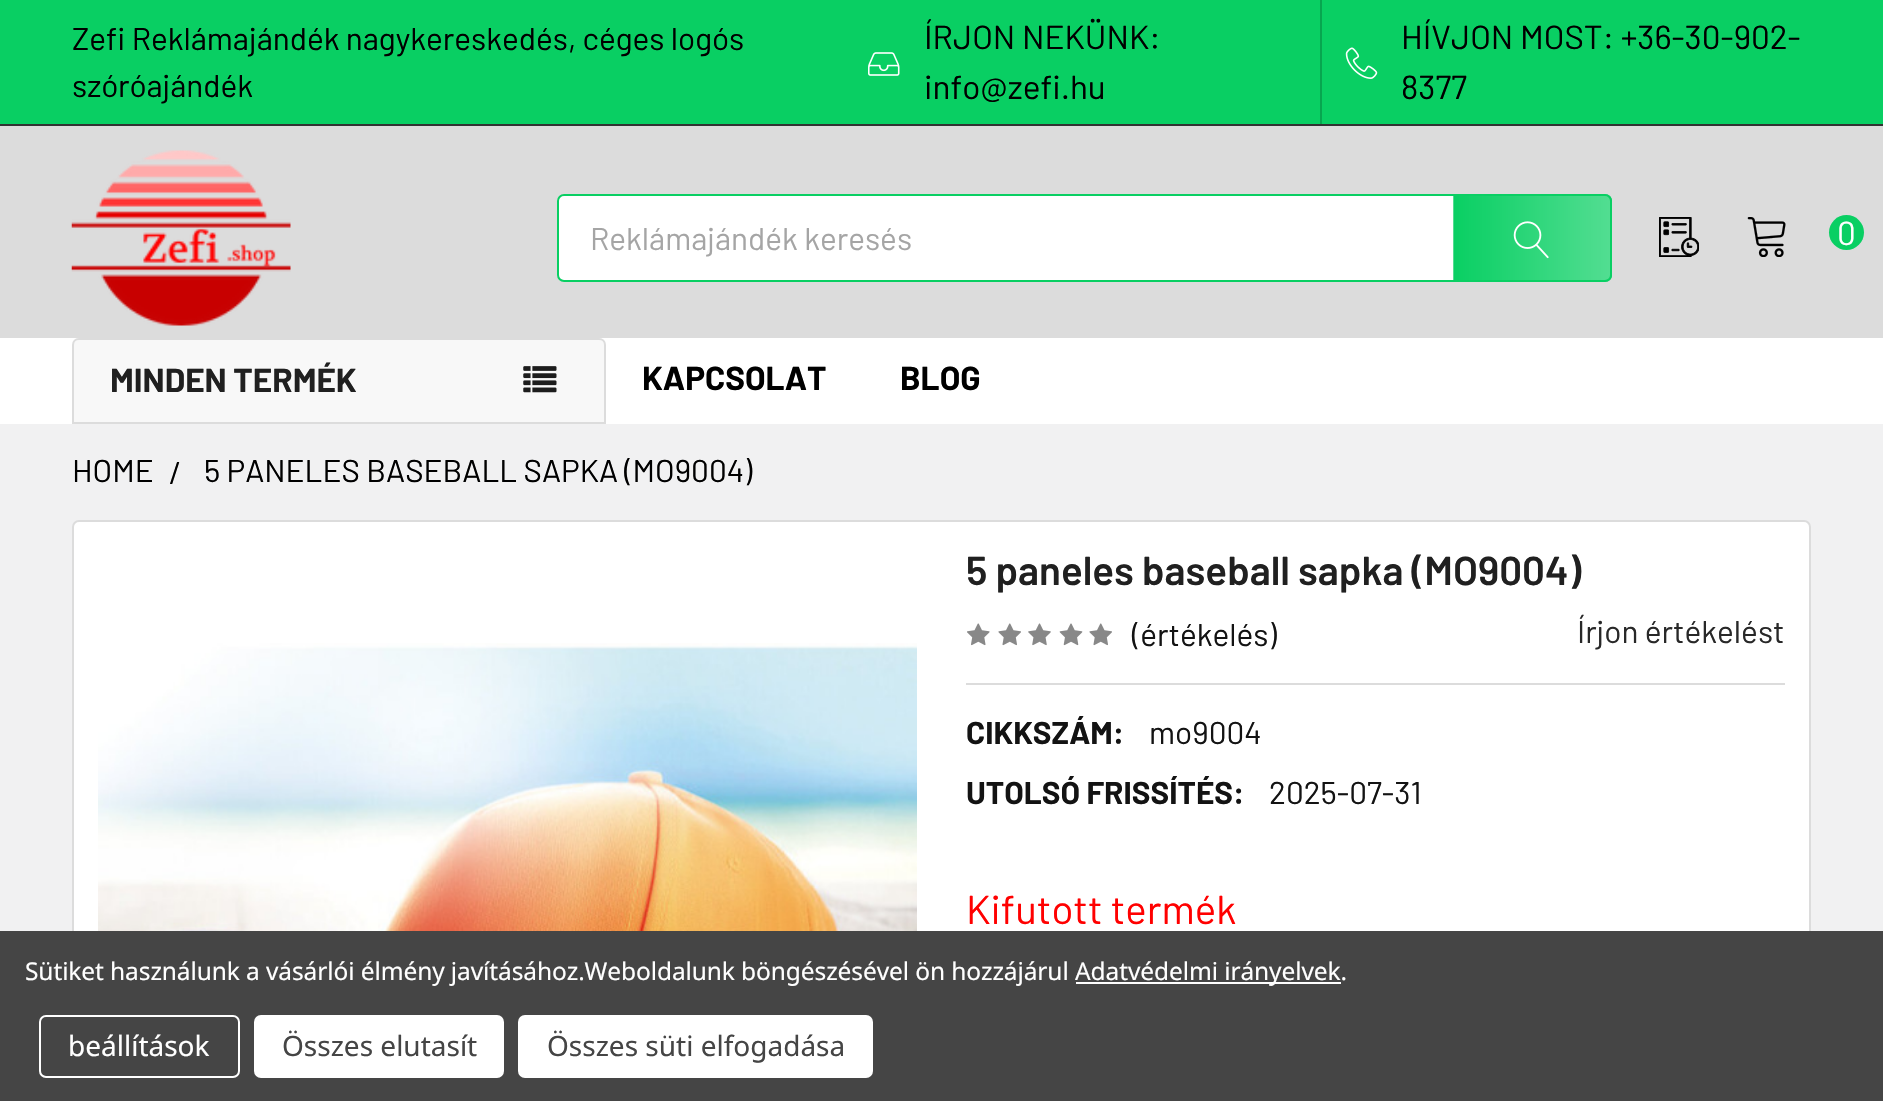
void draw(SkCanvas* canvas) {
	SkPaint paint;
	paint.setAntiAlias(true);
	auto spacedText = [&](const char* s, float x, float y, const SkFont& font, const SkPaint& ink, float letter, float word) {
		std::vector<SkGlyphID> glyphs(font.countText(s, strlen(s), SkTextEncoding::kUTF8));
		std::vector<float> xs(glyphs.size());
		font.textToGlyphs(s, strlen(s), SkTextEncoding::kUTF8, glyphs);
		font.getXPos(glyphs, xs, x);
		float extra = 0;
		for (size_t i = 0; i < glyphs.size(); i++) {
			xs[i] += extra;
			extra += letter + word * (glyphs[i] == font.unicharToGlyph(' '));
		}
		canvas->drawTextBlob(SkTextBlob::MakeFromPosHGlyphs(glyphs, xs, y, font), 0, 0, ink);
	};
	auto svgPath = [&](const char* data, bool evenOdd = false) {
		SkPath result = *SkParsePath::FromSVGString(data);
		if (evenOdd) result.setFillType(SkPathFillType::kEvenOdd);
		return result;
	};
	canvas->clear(0xfff1f1f2);
	paint.setColor(0xffdcdcdc);
	canvas->drawRect(SkRect::MakeXYWH(0, 126, 1883, 212), paint);
	paint.setColor(0xff09cf63);
	canvas->drawRect(SkRect::MakeXYWH(0, 0, 1883, 124), paint);
	paint.setColor(0xff323232);
	canvas->drawRect(SkRect::MakeXYWH(0, 124, 1883, 2), paint);
	SkFont f1(fontMgr->matchFamilyStyle("Barlow", SkFontStyle::Normal()), 31.5);
	f1.setSubpixel(true);
	paint.setColor(0xff000000);
	canvas->drawString("Zefi Reklámajándék nagykereskedés, céges logós", 72, 50, f1, paint);
	canvas->drawString("szóróajándék", 72, 97, f1, paint);
	canvas->drawImageRect(SkImages::DeferredFromEncodedData(SkData::MakeFromFileName("img1.png")), SkRect::MakeXYWH(868, 52, 32, 24), SkSamplingOptions());
	SkFont f2(fontMgr->matchFamilyStyle("Barlow", SkFontStyle::Normal()), 33.25);
	f2.setSubpixel(true);
	canvas->drawString("ÍRJON NEKÜNK:", 924, 49, f2, paint);
	canvas->drawString("info@zefi.hu", 924, 99, f2, paint);
	paint.setColor(0xff07a64f);
	canvas->drawRect(SkRect::MakeXYWH(1320, 0, 2, 124), paint);
	canvas->drawImageRect(SkImages::DeferredFromEncodedData(SkData::MakeFromFileName("img2.png")), SkRect::MakeXYWH(1345, 47, 33, 32), SkSamplingOptions());
	paint.setColor(0xff000000);
	canvas->drawString("HÍVJON MOST: +36-30-902-", 1401, 49, f2, paint);
	canvas->drawString("8377", 1401, 99, f2, paint);
	canvas->drawImageRect(SkImages::DeferredFromEncodedData(SkData::MakeFromFileName("img3.png")), SkRect::MakeXYWH(71, 150, 220, 176), SkSamplingOptions());
	paint.setColor(0xffffffff);
	canvas->drawRoundRect(SkRect::MakeXYWH(558, 195, 1053, 86), 6, 6, paint);
	paint.setStroke(true);
	paint.setStrokeWidth(2);
	paint.setColor(0xff09cf63);
	canvas->drawRoundRect(SkRect::MakeXYWH(558, 195, 1053, 86), 6, 6, paint);
	paint.setStroke(false);
	paint.setColor(0xffa5a5a5);
	canvas->drawString("Reklámajándék keresés", 590, 250, f1, paint);
	{
		const SkColor colors[] = {0xff09cf63, 0xb309cf63};
		const float stops[] = {0, 1};
		const SkPoint ends[] = {{1299, 238}, {1454, 238}};
		paint.setShader(SkGradientShader::MakeLinear(ends, colors, stops, 2, SkTileMode::kClamp));
		paint.setAlpha(255);
	}
	canvas->drawRect(SkRect::MakeXYWH(1453, 194, 1, 88), paint);
	canvas->save();
	canvas->clipPath(svgPath("M1453 194H1605C1609 194 1612 197 1612 201V275C1612 279 1609 282 1605 282H1453Z"), true);
	{
		const SkColor colors[] = {0xff09cf63, 0xb309cf63};
		const float stops[] = {0, 1};
		const SkPoint ends[] = {{1454, 238}, {1610, 238}};
		paint.setShader(SkGradientShader::MakeLinear(ends, colors, stops, 2, SkTileMode::kClamp));
		paint.setAlpha(255);
	}
	canvas->drawRect(SkRect::MakeXYWH(1454, 194, 156, 88), paint);
	{
		const SkColor colors[] = {0xff09cf63, 0xb309cf63};
		const float stops[] = {0, 1};
		const SkPoint ends[] = {{1610, 238}, {1766, 238}};
		paint.setShader(SkGradientShader::MakeLinear(ends, colors, stops, 2, SkTileMode::kClamp));
		paint.setAlpha(255);
	}
	canvas->drawRect(SkRect::MakeXYWH(1610, 194, 2, 88), paint);
	canvas->restore();
	canvas->drawImageRect(SkImages::DeferredFromEncodedData(SkData::MakeFromFileName("img4.png")), SkRect::MakeXYWH(1513, 221, 36, 38), SkSamplingOptions());
	canvas->drawImageRect(SkImages::DeferredFromEncodedData(SkData::MakeFromFileName("img5.png")), SkRect::MakeXYWH(1659, 217, 40, 40), SkSamplingOptions());
	canvas->drawImageRect(SkImages::DeferredFromEncodedData(SkData::MakeFromFileName("img6.png")), SkRect::MakeXYWH(1747, 217, 39, 40), SkSamplingOptions());
	paint.setShader(nullptr);
	paint.setColor(0xff09cf63);
	canvas->drawCircle(1846.5, 232.5, 17.5, paint);
	paint.setColor(0xffffffff);
	canvas->drawString("0", 1837, 245, f2, paint);
	canvas->drawRect(SkRect::MakeXYWH(0, 338, 1883, 86), paint);
	paint.setColor(0xfff8f8f8);
	canvas->drawRoundRect(SkRect::MakeXYWH(72, 338, 534, 86), 7, 7, paint);
	paint.setStroke(true);
	paint.setColor(0xffdcdcdc);
	canvas->drawPath(svgPath("M79 339H599C602.5 339 605 341.5 605 345V423H73V345C73 341.5 75.5 339 79 339Z"), paint);
	SkFont f3(fontMgr->matchFamilyStyle("Barlow", SkFontStyle::Bold()), 33.25);
	f3.setSubpixel(true);
	paint.setStroke(false);
	paint.setColor(0xff202020);
	canvas->drawString("MINDEN TERMÉK", 110, 392, f3, paint);
	canvas->drawImageRect(SkImages::DeferredFromEncodedData(SkData::MakeFromFileName("img7.png")), SkRect::MakeXYWH(523, 366, 34, 27), SkSamplingOptions());
	paint.setColor(0xff000000);
	canvas->drawString("KAPCSOLAT", 642, 390, f3, paint);
	canvas->drawString("BLOG", 900, 390, f3, paint);
	canvas->drawString("HOME", 72, 482, f1, paint);
	canvas->drawString("/", 169, 484, f1, paint);
	canvas->drawString("5 PANELES BASEBALL SAPKA (MO9004)", 204, 482, f1, paint);
	paint.setColor(0xffffffff);
	canvas->drawRoundRect(SkRect::MakeXYWH(73, 521, 1737, 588), 6, 6, paint);
	paint.setStroke(true);
	paint.setColor(0xffdcdcdc);
	canvas->drawRoundRect(SkRect::MakeXYWH(73, 521, 1737, 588), 6, 6, paint);
	canvas->drawImageRect(SkImages::DeferredFromEncodedData(SkData::MakeFromFileName("img8.png")), SkRect::MakeXYWH(98, 643, 819, 288), SkSamplingOptions());
	SkFont f4(fontMgr->matchFamilyStyle("Barlow", SkFontStyle(600, SkFontStyle::kNormal_Width, SkFontStyle::kUpright_Slant)), 40.25);
	f4.setSubpixel(true);
	paint.setStroke(false);
	paint.setColor(0xff202020);
	canvas->drawString("5 paneles baseball sapka (MO9004)", 966, 585, f4, paint);
	canvas->drawImageRect(SkImages::DeferredFromEncodedData(SkData::MakeFromFileName("img9.png")), SkRect::MakeXYWH(967, 623, 23, 23), SkSamplingOptions());
	canvas->drawImageRect(SkImages::DeferredFromEncodedData(SkData::MakeFromFileName("img10.png")), SkRect::MakeXYWH(998, 623, 23, 23), SkSamplingOptions());
	canvas->drawImageRect(SkImages::DeferredFromEncodedData(SkData::MakeFromFileName("img11.png")), SkRect::MakeXYWH(1028, 623, 23, 23), SkSamplingOptions());
	canvas->drawImageRect(SkImages::DeferredFromEncodedData(SkData::MakeFromFileName("img12.png")), SkRect::MakeXYWH(1059, 623, 24, 23), SkSamplingOptions());
	canvas->drawImageRect(SkImages::DeferredFromEncodedData(SkData::MakeFromFileName("img10.png")), SkRect::MakeXYWH(1089, 623, 23, 23), SkSamplingOptions());
	paint.setColor(0xff131313);
	canvas->drawString("(értékelés)", 1132, 646, f1, paint);
	paint.setColor(0xff282828);
	canvas->drawString("Írjon értékelést", 1577, 643, f1, paint);
	paint.setColor(0xffdcdcdc);
	canvas->drawRect(SkRect::MakeXYWH(966, 683, 819, 2), paint);
	SkFont f5(fontMgr->matchFamilyStyle("Barlow", SkFontStyle::Bold()), 31.5);
	f5.setSubpixel(true);
	paint.setColor(0xff131313);
	canvas->drawString("CIKKSZÁM:", 966, 744, f5, paint);
	canvas->drawString("mo9004", 1149, 744, f1, paint);
	canvas->drawString("UTOLSÓ FRISSÍTÉS:", 966, 804, f5, paint);
	canvas->drawString("2025-07-31", 1269, 804, f1, paint);
	SkFont f6(fontMgr->matchFamilyStyle("Barlow", SkFontStyle::Normal()), 40.25);
	f6.setSubpixel(true);
	paint.setColor(0xffff0000);
	canvas->drawString("Kifutott termék", 966, 924, f6, paint);
	paint.setColor(0xff454545);
	canvas->drawRect(SkRect::MakeXYWH(0, 931, 1883, 170), paint);
	SkFont f7(fontMgr->matchFamilyStyle("Noto Sans", SkFontStyle::Normal()), 24.5);
	f7.setSubpixel(true);
	paint.setColor(0xffffffff);
	spacedText("Sütiket használunk a vásárlói élmény javításához.Weboldalunk böngészésével ön hozzájárul", 25, 980, f7, paint, -0.1, 0);
	canvas->drawRect(SkRect::MakeXYWH(1076, 982, 265, 2), paint);
	spacedText("Adatvédelmi irányelvek.", 1075, 980, f7, paint, -0.1, 0);
	paint.setStroke(true);
	canvas->drawRoundRect(SkRect::MakeXYWH(40, 1016, 199, 61), 6, 6, paint);
	SkFont f8(fontMgr->matchFamilyStyle("Noto Sans", SkFontStyle::Normal()), 28);
	f8.setSubpixel(true);
	paint.setStroke(false);
	canvas->drawString("beállítások", 68, 1056, f8, paint);
	canvas->drawRoundRect(SkRect::MakeXYWH(254, 1015, 250, 63), 7, 7, paint);
	paint.setColor(0xff454545);
	canvas->drawString("Összes elutasít", 282, 1056, f8, paint);
	paint.setColor(0xffffffff);
	canvas->drawRoundRect(SkRect::MakeXYWH(518, 1015, 355, 63), 7, 7, paint);
	paint.setColor(0xff454545);
	canvas->drawString("Összes süti elfogadása", 547, 1056, f8, paint);
}
